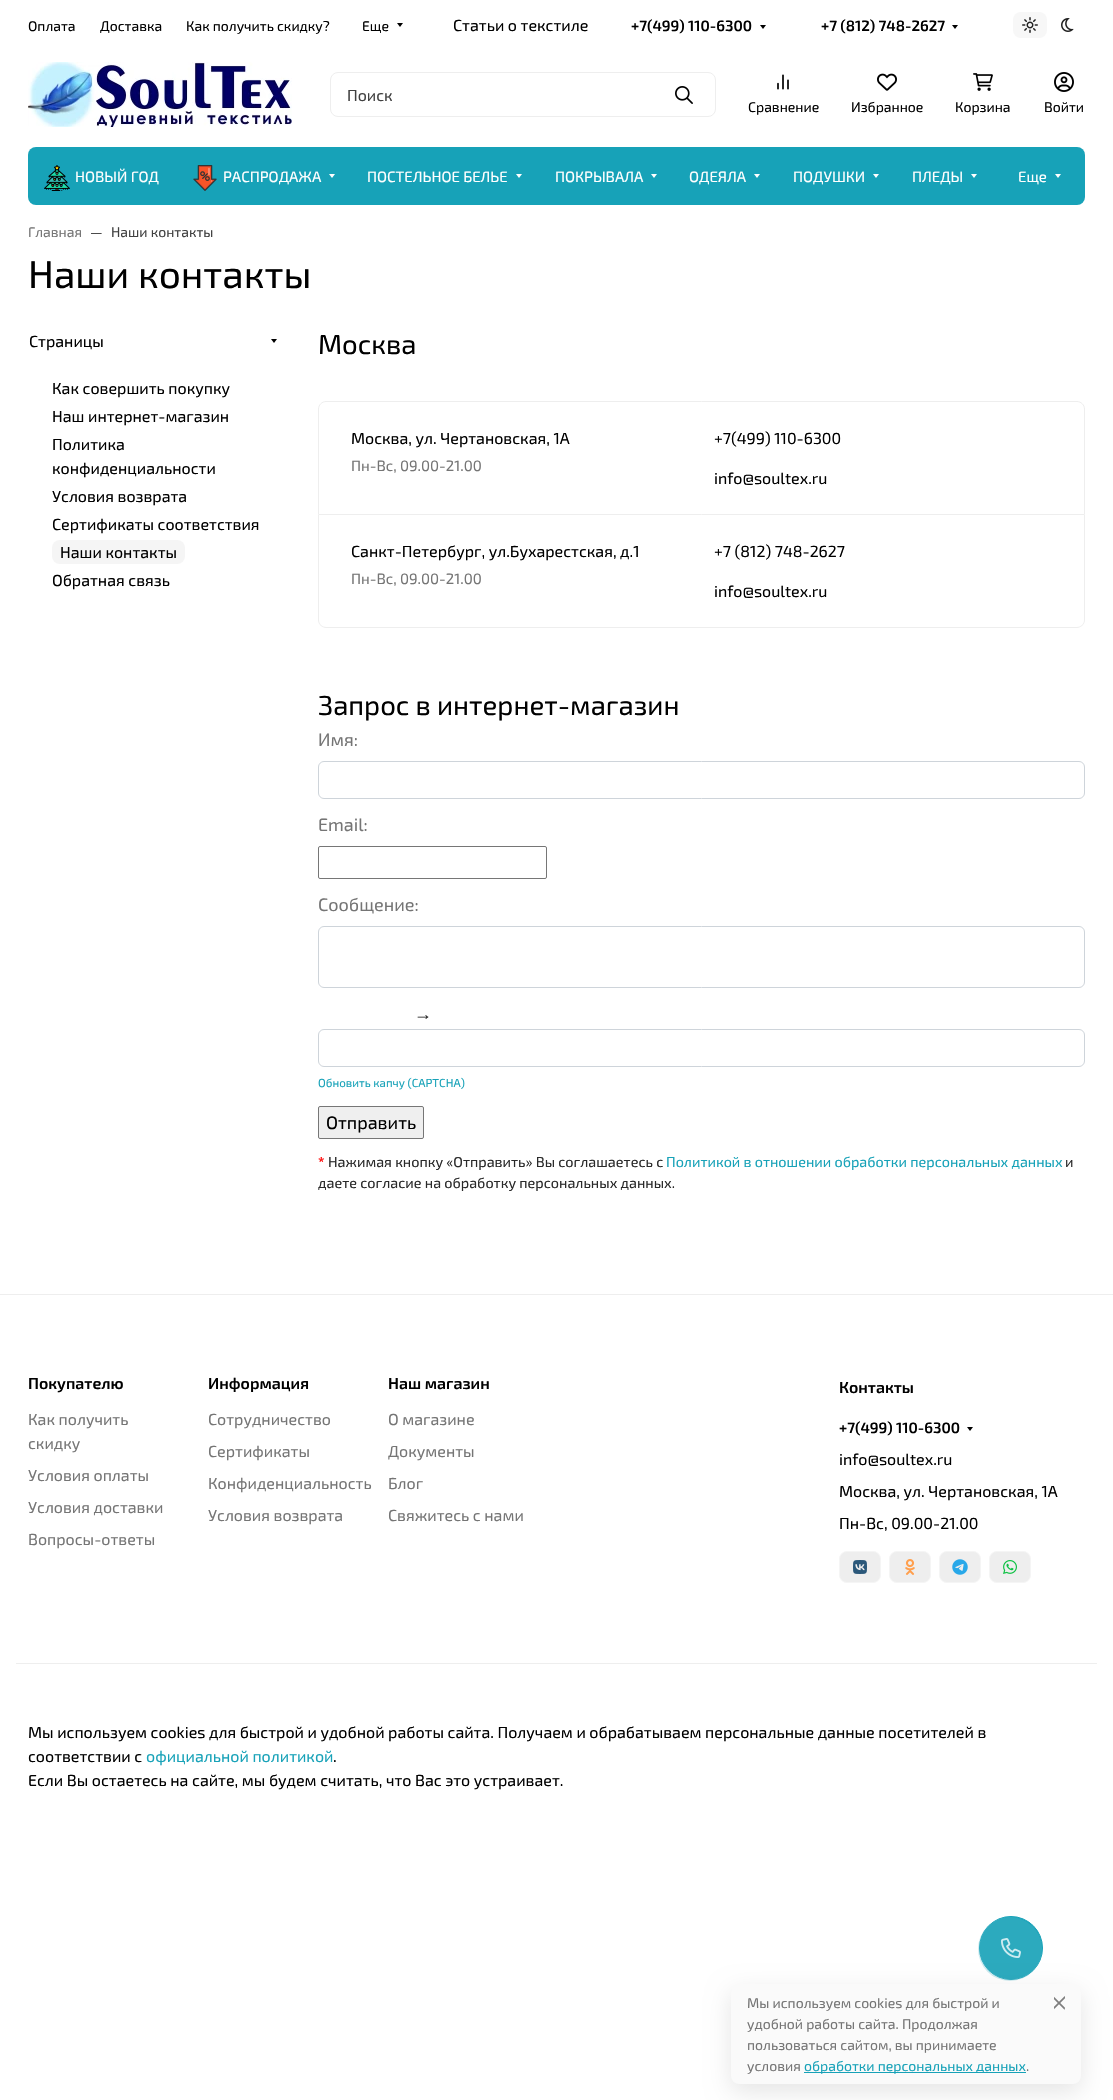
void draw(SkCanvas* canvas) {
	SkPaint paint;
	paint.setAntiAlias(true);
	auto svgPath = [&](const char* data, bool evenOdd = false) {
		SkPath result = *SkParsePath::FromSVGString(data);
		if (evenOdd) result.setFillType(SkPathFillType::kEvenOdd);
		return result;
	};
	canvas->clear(0xffffffff);
	SkFont f1(fontMgr->matchFamilyStyle("Exo 2", SkFontStyle::Normal()), 14);
	f1.setSubpixel(true);
	paint.setColor(0xff000000);
	canvas->drawString("Оплата", 28, 31, f1, paint);
	canvas->drawString("Доставка", 100, 31, f1, paint);
	canvas->drawString("Как получить скидку?", 186, 31, f1, paint);
	canvas->drawString("Еще", 362, 31, f1, paint);
	canvas->drawPath(svgPath("M397 23H403L400 27Z"), paint);
	SkFont f2(fontMgr->matchFamilyStyle("Exo 2", SkFontStyle::Normal()), 16);
	f2.setSubpixel(true);
	canvas->drawString("Статьи о текстиле", 453, 31, f2, paint);
	SkFont f3(fontMgr->matchFamilyStyle("Exo 2", SkFontStyle(600, SkFontStyle::kNormal_Width, SkFontStyle::kUpright_Slant)), 15);
	f3.setSubpixel(true);
	canvas->drawString("+7(499) 110-6300", 631, 31, f3, paint);
	canvas->drawPath(svgPath("M760 25H766L763 29Z"), paint);
	canvas->drawString("+7 (812) 748-2627", 821, 31, f3, paint);
	canvas->drawPath(svgPath("M952 25H958L955 29Z"), paint);
	paint.setColor(0xfff7f7f7);
	canvas->drawRoundRect(SkRect::MakeXYWH(1013, 12, 34, 26), 8, 8, paint);
	canvas->drawImageRect(SkImages::DeferredFromEncodedData(SkData::MakeFromFileName("img1.png")), SkRect::MakeXYWH(1022, 17, 16, 16), SkSamplingOptions());
	canvas->drawImageRect(SkImages::DeferredFromEncodedData(SkData::MakeFromFileName("img2.png")), SkRect::MakeXYWH(1061, 18, 13, 14), SkSamplingOptions());
	canvas->drawImageRect(SkImages::DeferredFromEncodedData(SkData::MakeFromFileName("img3.png")), SkRect::MakeXYWH(28, 62, 264, 65), SkSamplingOptions());
	paint.setStroke(true);
	paint.setStrokeWidth(1);
	paint.setColor(0xffeeeeee);
	canvas->drawRoundRect(SkRect::MakeXYWH(330.5, 72.5, 385, 44), 7.5, 7.5, paint);
	paint.setStroke(false);
	paint.setColor(0xff404040);
	canvas->drawString("Поиск", 347, 101, f2, paint);
	canvas->drawImageRect(SkImages::DeferredFromEncodedData(SkData::MakeFromFileName("img4.png")), SkRect::MakeXYWH(675, 86, 18, 18), SkSamplingOptions());
	canvas->drawImageRect(SkImages::DeferredFromEncodedData(SkData::MakeFromFileName("img5.png")), SkRect::MakeXYWH(777, 74, 12, 16), SkSamplingOptions());
	paint.setColor(0xff000000);
	canvas->drawString("Сравнение", 748, 112, f1, paint);
	canvas->drawImageRect(SkImages::DeferredFromEncodedData(SkData::MakeFromFileName("img6.png")), SkRect::MakeXYWH(877, 73, 20, 18), SkSamplingOptions());
	canvas->drawString("Избранное", 851, 112, f1, paint);
	canvas->drawImageRect(SkImages::DeferredFromEncodedData(SkData::MakeFromFileName("img7.png")), SkRect::MakeXYWH(973, 73, 20, 18), SkSamplingOptions());
	canvas->drawString("Корзина", 955, 112, f1, paint);
	canvas->drawImageRect(SkImages::DeferredFromEncodedData(SkData::MakeFromFileName("img8.png")), SkRect::MakeXYWH(1054, 72, 20, 20), SkSamplingOptions());
	canvas->drawString("Войти", 1044, 112, f1, paint);
	paint.setColor(0xff17a2b8);
	canvas->drawRoundRect(SkRect::MakeXYWH(28, 147, 1057, 58), 8, 8, paint);
	canvas->drawImageRect(SkImages::DeferredFromEncodedData(SkData::MakeFromFileName("img9.png")), SkRect::MakeXYWH(44, 165, 26, 26), SkSamplingOptions());
	SkFont f4(fontMgr->matchFamilyStyle("Exo 2", SkFontStyle::Normal()), 15);
	f4.setSubpixel(true);
	paint.setColor(0xffffffff);
	canvas->drawString("НОВЫЙ ГОД", 75, 182, f4, paint);
	canvas->drawImageRect(SkImages::DeferredFromEncodedData(SkData::MakeFromFileName("img10.png")), SkRect::MakeXYWH(193, 165, 24, 26), SkSamplingOptions());
	canvas->drawString("РАСПРОДАЖА", 223, 182, f4, paint);
	canvas->drawPath(svgPath("M329 174H335L332 178Z"), paint);
	canvas->drawString("ПОСТЕЛЬНОЕ БЕЛЬЕ", 367, 182, f4, paint);
	canvas->drawPath(svgPath("M516 174H522L519 178Z"), paint);
	canvas->drawString("ПОКРЫВАЛА", 555, 182, f4, paint);
	canvas->drawPath(svgPath("M651 174H657L654 178Z"), paint);
	canvas->drawString("ОДЕЯЛА", 689, 182, f4, paint);
	canvas->drawPath(svgPath("M754 174H760L757 178Z"), paint);
	canvas->drawString("ПОДУШКИ", 793, 182, f4, paint);
	canvas->drawPath(svgPath("M873 174H879L876 178Z"), paint);
	canvas->drawString("ПЛЕДЫ", 912, 182, f4, paint);
	canvas->drawPath(svgPath("M971 174H977L974 178Z"), paint);
	canvas->drawString("Еще", 1018, 182, f4, paint);
	canvas->drawPath(svgPath("M1055 174H1061L1058 178Z"), paint);
	paint.setColor(0xff757575);
	canvas->drawString("Главная", 28, 237, f1, paint);
	paint.setColor(0xff404040);
	canvas->drawString("—", 90, 237, f1, paint);
	canvas->drawString("Наши контакты", 111, 237, f1, paint);
	SkFont f5(fontMgr->matchFamilyStyle("Exo 2", SkFontStyle::Normal()), 38.75);
	f5.setSubpixel(true);
	paint.setColor(0xff000000);
	canvas->drawString("Наши контакты", 28, 288, f5, paint);
	canvas->drawString("Страницы", 29, 347, f2, paint);
	canvas->drawPath(svgPath("M271 339H277L274 343Z"), paint);
	canvas->drawString("Как совершить покупку", 52, 394, f2, paint);
	canvas->drawString("Наш интернет-магазин", 52, 422, f2, paint);
	canvas->drawString("Политика", 52, 450, f2, paint);
	canvas->drawString("конфиденциальности", 52, 474, f2, paint);
	canvas->drawString("Условия возврата", 52, 502, f2, paint);
	canvas->drawString("Сертификаты соответствия", 52, 530, f2, paint);
	paint.setColor(0xfff5f5f5);
	canvas->drawRoundRect(SkRect::MakeXYWH(52, 540, 133, 24), 8, 8, paint);
	paint.setColor(0xff000000);
	canvas->drawString("Наши контакты", 60, 558, f2, paint);
	canvas->drawString("Обратная связь", 52, 586, f2, paint);
	SkFont f6(fontMgr->matchFamilyStyle("Exo 2", SkFontStyle::Normal()), 27.5);
	f6.setSubpixel(true);
	canvas->drawString("Москва", 318, 354, f6, paint);
	paint.setStroke(true);
	paint.setColor(0xffeeeeee);
	canvas->drawPath(svgPath("M326 401.5H1077C1081 401.5 1084.5 405 1084.5 409V514.5H318.5V409C318.5 405 322 401.5 326 401.5Z"), paint);
	paint.setStroke(false);
	paint.setColor(0xff000000);
	canvas->drawString("Москва, ул. Чертановская, 1А", 351, 444, f2, paint);
	paint.setColor(0xff757575);
	canvas->drawString("Пн-Вс, 09.00-21.00", 351, 471, f4, paint);
	paint.setColor(0xff000000);
	canvas->drawString("+7(499) 110-6300", 714, 444, f2, paint);
	canvas->drawString("info@soultex.ru", 714, 484, f2, paint);
	paint.setColor(0xffeeeeee);
	canvas->drawPath(svgPath("M318 515H1085V620C1085 624 1081 628 1077 628H326C322 628 318 624 318 620ZM319 515H1084V620C1084 624 1081 627 1077 627H326C322 627 319 624 319 620Z", true), paint);
	paint.setColor(0xff000000);
	canvas->drawString("Санкт-Петербург, ул.Бухарестская, д.1", 351, 557, f2, paint);
	paint.setColor(0xff757575);
	canvas->drawString("Пн-Вс, 09.00-21.00", 351, 584, f4, paint);
	paint.setColor(0xff000000);
	canvas->drawString("+7 (812) 748-2627", 714, 557, f2, paint);
	canvas->drawString("info@soultex.ru", 714, 597, f2, paint);
	canvas->drawString("Запрос в интернет-магазин", 318, 715, f6, paint);
	SkFont f7(fontMgr->matchFamilyStyle("Exo 2", SkFontStyle::Normal()), 18);
	f7.setSubpixel(true);
	paint.setColor(0xff757575);
	canvas->drawString("Имя:", 318, 746, f7, paint);
	paint.setStroke(true);
	paint.setColor(0xffced4da);
	canvas->drawRoundRect(SkRect::MakeXYWH(318.5, 761.5, 766, 37), 5.5, 5.5, paint);
	paint.setStroke(false);
	paint.setColor(0xff757575);
	canvas->drawString("Email:", 318, 831, f7, paint);
	paint.setStroke(true);
	paint.setColor(0xff767676);
	canvas->drawRoundRect(SkRect::MakeXYWH(318.5, 846.5, 228, 32), 1.5, 1.5, paint);
	paint.setStroke(false);
	paint.setColor(0xff757575);
	canvas->drawString("Сообщение:", 318, 911, f7, paint);
	paint.setStroke(true);
	paint.setColor(0xffced4da);
	canvas->drawRoundRect(SkRect::MakeXYWH(318.5, 926.5, 766, 61), 5.5, 5.5, paint);
	SkFont f8(fontMgr->matchFamilyStyle("Liberation Sans", SkFontStyle::Bold()), 18);
	f8.setSubpixel(true);
	paint.setStroke(false);
	paint.setColor(0xff2a2a2a);
	canvas->drawString("→", 414, 1020, f8, paint);
	paint.setStroke(true);
	paint.setColor(0xffced4da);
	canvas->drawRoundRect(SkRect::MakeXYWH(318.5, 1029.5, 766, 37), 5.5, 5.5, paint);
	SkFont f9(fontMgr->matchFamilyStyle("Exo 2", SkFontStyle::Normal()), 11.6);
	f9.setSubpixel(true);
	paint.setStroke(false);
	paint.setColor(0xff17a2b8);
	canvas->drawString("Обновить капчу (CAPTCHA)", 318, 1087, f9, paint);
	paint.setColor(0xffefefef);
	canvas->drawRoundRect(SkRect::MakeXYWH(318.5, 1106.5, 105, 32), 1.5, 1.5, paint);
	paint.setStroke(true);
	paint.setColor(0xff767676);
	canvas->drawRoundRect(SkRect::MakeXYWH(318.5, 1106.5, 105, 32), 1.5, 1.5, paint);
	paint.setStroke(false);
	paint.setColor(0xff000000);
	canvas->drawString("Отправить", 326, 1129, f7, paint);
	SkFont f10(fontMgr->matchFamilyStyle("Exo 2", SkFontStyle::Bold()), 14.4);
	f10.setSubpixel(true);
	paint.setColor(0xffff0000);
	canvas->drawString("*", 318, 1167, f10, paint);
	SkFont f11(fontMgr->matchFamilyStyle("Exo 2", SkFontStyle::Normal()), 14.4);
	f11.setSubpixel(true);
	paint.setColor(0xff2a2a2a);
	canvas->drawString("Нажимая кнопку «Отправить» Вы соглашаетесь с", 328, 1167, f11, paint);
	paint.setColor(0xff17a2b8);
	canvas->drawString("Политикой в отношении обработки персональных данных", 666, 1167, f11, paint);
	paint.setColor(0xff2a2a2a);
	canvas->drawString("и", 1065, 1167, f11, paint);
	canvas->drawString("даете согласие на обработку персональных данных.", 318, 1188, f11, paint);
	paint.setColor(0xffeeeeee);
	canvas->drawRect(SkRect::MakeXYWH(0, 1294, 1113, 1), paint);
	SkFont f12(fontMgr->matchFamilyStyle("Exo 2", SkFontStyle(600, SkFontStyle::kNormal_Width, SkFontStyle::kUpright_Slant)), 16);
	f12.setSubpixel(true);
	paint.setColor(0xff000000);
	canvas->drawString("Покупателю", 28, 1389, f12, paint);
	paint.setColor(0xff757575);
	canvas->drawString("Как получить", 28, 1425, f2, paint);
	canvas->drawString("скидку", 28, 1449, f2, paint);
	canvas->drawString("Условия оплаты", 28, 1481, f2, paint);
	canvas->drawString("Условия доставки", 28, 1513, f2, paint);
	canvas->drawString("Вопросы-ответы", 28, 1545, f2, paint);
	paint.setColor(0xff000000);
	canvas->drawString("Информация", 208, 1389, f12, paint);
	paint.setColor(0xff757575);
	canvas->drawString("Сотрудничество", 208, 1425, f2, paint);
	canvas->drawString("Сертификаты", 208, 1457, f2, paint);
	canvas->drawString("Конфиденциальность", 208, 1489, f2, paint);
	canvas->drawString("Условия возврата", 208, 1521, f2, paint);
	paint.setColor(0xff000000);
	canvas->drawString("Наш магазин", 388, 1389, f12, paint);
	paint.setColor(0xff757575);
	canvas->drawString("О магазине", 388, 1425, f2, paint);
	canvas->drawString("Документы", 388, 1457, f2, paint);
	canvas->drawString("Блог", 388, 1489, f2, paint);
	canvas->drawString("Свяжитесь с нами", 388, 1521, f2, paint);
	paint.setColor(0xff000000);
	canvas->drawString("Контакты", 839, 1393, f12, paint);
	canvas->drawString("+7(499) 110-6300", 839, 1433, f3, paint);
	canvas->drawPath(svgPath("M967 1427H973L970 1431Z"), paint);
	canvas->drawString("info@soultex.ru", 839, 1465, f2, paint);
	canvas->drawString("Москва, ул. Чертановская, 1А", 839, 1497, f2, paint);
	canvas->drawString("Пн-Вс, 09.00-21.00", 839, 1529, f2, paint);
	paint.setColor(0xffeeeeee);
	canvas->drawRoundRect(SkRect::MakeXYWH(839.5, 1551.5, 41, 31), 7.5, 7.5, paint);
	paint.setStroke(true);
	paint.setColor(0xfff5f5f5);
	canvas->drawRoundRect(SkRect::MakeXYWH(839.5, 1551.5, 41, 31), 7.5, 7.5, paint);
	canvas->drawImageRect(SkImages::DeferredFromEncodedData(SkData::MakeFromFileName("img11.png")), SkRect::MakeXYWH(853, 1560, 14, 14), SkSamplingOptions());
	paint.setStroke(false);
	paint.setColor(0xffeeeeee);
	canvas->drawRoundRect(SkRect::MakeXYWH(889.5, 1551.5, 41, 31), 7.5, 7.5, paint);
	paint.setStroke(true);
	paint.setColor(0xfff5f5f5);
	canvas->drawRoundRect(SkRect::MakeXYWH(889.5, 1551.5, 41, 31), 7.5, 7.5, paint);
	canvas->drawImageRect(SkImages::DeferredFromEncodedData(SkData::MakeFromFileName("img12.png")), SkRect::MakeXYWH(905, 1559, 10, 16), SkSamplingOptions());
	paint.setStroke(false);
	paint.setColor(0xffeeeeee);
	canvas->drawRoundRect(SkRect::MakeXYWH(939.5, 1551.5, 41, 31), 7.5, 7.5, paint);
	paint.setStroke(true);
	paint.setColor(0xfff5f5f5);
	canvas->drawRoundRect(SkRect::MakeXYWH(939.5, 1551.5, 41, 31), 7.5, 7.5, paint);
	canvas->drawImageRect(SkImages::DeferredFromEncodedData(SkData::MakeFromFileName("img13.png")), SkRect::MakeXYWH(952, 1559, 16, 16), SkSamplingOptions());
	paint.setStroke(false);
	paint.setColor(0xffeeeeee);
	canvas->drawRoundRect(SkRect::MakeXYWH(989.5, 1551.5, 41, 31), 7.5, 7.5, paint);
	paint.setStroke(true);
	paint.setColor(0xfff5f5f5);
	canvas->drawRoundRect(SkRect::MakeXYWH(989.5, 1551.5, 41, 31), 7.5, 7.5, paint);
	canvas->drawImageRect(SkImages::DeferredFromEncodedData(SkData::MakeFromFileName("img14.png")), SkRect::MakeXYWH(1003, 1560, 14, 14), SkSamplingOptions());
	paint.setStroke(false);
	paint.setColor(0xffeeeeee);
	canvas->drawRect(SkRect::MakeXYWH(16, 1663, 1081, 1), paint);
	paint.setColor(0xff000000);
	canvas->drawString("Мы используем cookies для быстрой и удобной работы сайта. Получаем и обрабатываем персональные данные посетителей в", 28, 1738, f2, paint);
	canvas->drawString("соответствии с", 28, 1762, f2, paint);
	paint.setColor(0xff17a2b8);
	canvas->drawString("официальной политикой", 146, 1762, f2, paint);
	paint.setColor(0xff000000);
	canvas->drawString(".", 333, 1762, f2, paint);
	canvas->drawString("Если Вы остаетесь на сайте, мы будем считать, что Вас это устраивает.", 28, 1786, f2, paint);
	paint.setColor(0xff17a2b8);
	canvas->drawCircle(1011, 1948, 31.5, paint);
	paint.setStroke(true);
	canvas->drawCircle(1011, 1948, 31.5, paint);
	canvas->drawImageRect(SkImages::DeferredFromEncodedData(SkData::MakeFromFileName("img15.png")), SkRect::MakeXYWH(1001, 1938, 20, 20), SkSamplingOptions());
	paint.setStroke(false);
	paint.setColor(0x4d5cbdcd);
	canvas->drawCircle(1010, 1949, 32, paint);
	paint.setColor(0x1a000000);
	paint.setMaskFilter(SkMaskFilter::MakeBlur(kNormal_SkBlurStyle, 12));
	canvas->drawRoundRect(SkRect::MakeXYWH(731, 1992, 350, 100), 8, 8, paint);
	paint.setMaskFilter(nullptr);
	paint.setColor(0xfffafafa);
	canvas->drawRoundRect(SkRect::MakeXYWH(731, 1984, 350, 100), 8, 8, paint);
	paint.setColor(0xff757575);
	canvas->drawString("Мы используем cookies для быстрой и", 747, 2008, f1, paint);
	canvas->drawString("удобной работы сайта. Продолжая", 747, 2029, f1, paint);
	canvas->drawString("пользоваться сайтом, вы принимаете", 747, 2050, f1, paint);
	canvas->drawString("условия", 747, 2071, f1, paint);
	paint.setColor(0xff17a2b8);
	canvas->drawRect(SkRect::MakeXYWH(804, 2072, 222, 1), paint);
	canvas->drawString("обработки персональных данных", 804, 2071, f1, paint);
	paint.setColor(0xff757575);
	canvas->drawString(".", 1026, 2071, f1, paint);
	canvas->drawImageRect(SkImages::DeferredFromEncodedData(SkData::MakeFromFileName("img16.png")), SkRect::MakeXYWH(1054, 1996, 11, 14), SkSamplingOptions());
}
